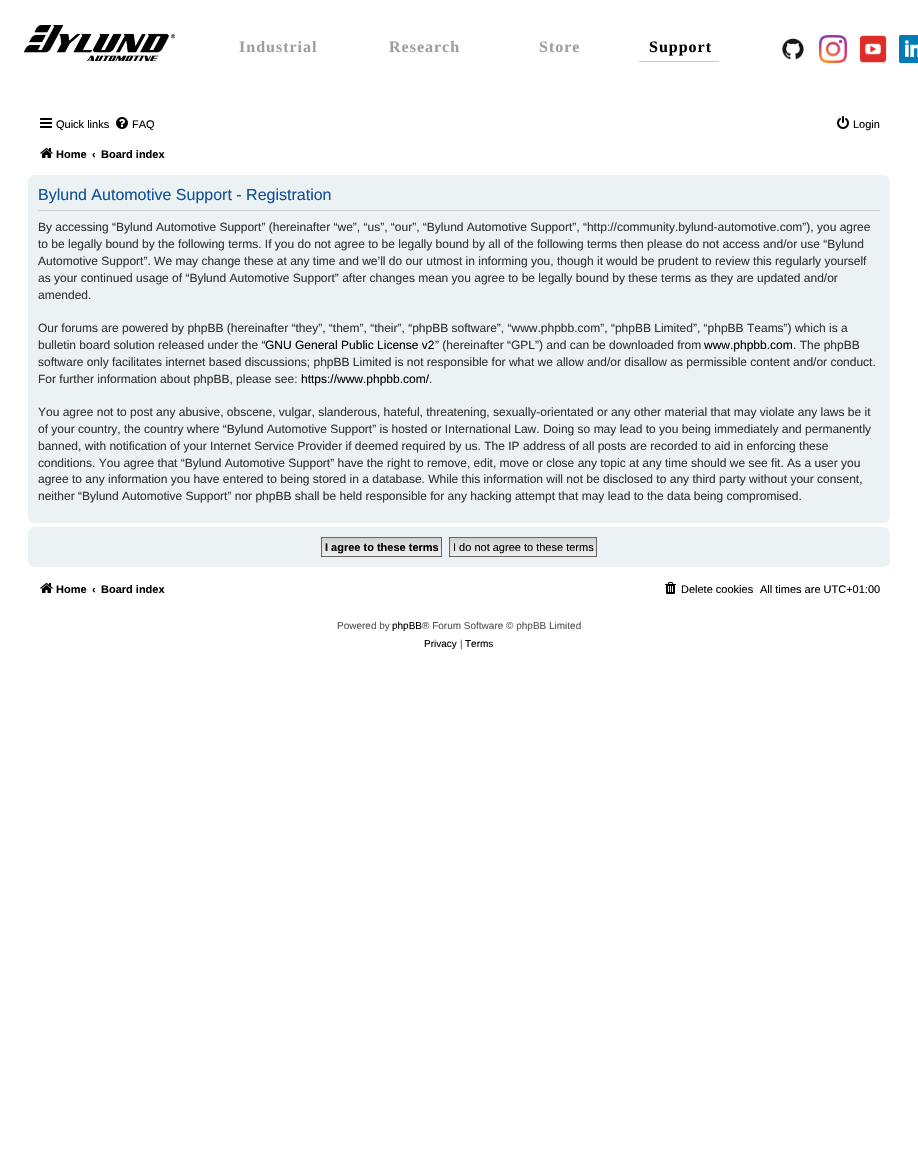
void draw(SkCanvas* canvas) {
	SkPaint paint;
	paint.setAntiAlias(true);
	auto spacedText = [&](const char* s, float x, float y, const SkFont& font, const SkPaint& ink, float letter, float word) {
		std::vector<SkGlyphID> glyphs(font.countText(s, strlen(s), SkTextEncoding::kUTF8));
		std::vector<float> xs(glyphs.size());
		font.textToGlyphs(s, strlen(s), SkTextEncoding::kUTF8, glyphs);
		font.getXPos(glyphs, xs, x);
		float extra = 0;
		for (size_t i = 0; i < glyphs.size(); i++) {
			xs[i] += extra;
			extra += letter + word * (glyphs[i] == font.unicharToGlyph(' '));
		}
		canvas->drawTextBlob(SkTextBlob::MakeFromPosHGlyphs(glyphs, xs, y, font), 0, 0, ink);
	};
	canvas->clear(0xffffffff);
	canvas->drawImageRect(SkImages::DeferredFromEncodedData(SkData::MakeFromFileName("img1.png")), SkRect::MakeXYWH(24, 25, 151, 36), SkSamplingOptions());
	SkFont f1(fontMgr->matchFamilyStyle("Liberation Serif", SkFontStyle::Bold()), 16);
	f1.setSubpixel(true);
	paint.setColor(0xff9e9e9e);
	spacedText("Industrial", 239, 52, f1, paint, 1, 0);
	spacedText("Research", 389, 52, f1, paint, 1, 0);
	spacedText("Store", 539, 52, f1, paint, 1, 0);
	paint.setColor(0xff000000);
	spacedText("Support", 649, 52, f1, paint, 1, 0);
	canvas->drawImageRect(SkImages::DeferredFromEncodedData(SkData::MakeFromFileName("img2.png")), SkRect::MakeXYWH(782, 38, 22, 22), SkSamplingOptions());
	canvas->drawImageRect(SkImages::DeferredFromEncodedData(SkData::MakeFromFileName("img3.png")), SkRect::MakeXYWH(819, 35, 28, 28), SkSamplingOptions());
	canvas->drawImageRect(SkImages::DeferredFromEncodedData(SkData::MakeFromFileName("img4.png")), SkRect::MakeXYWH(859, 35, 28, 28), SkSamplingOptions());
	canvas->drawImageRect(SkImages::DeferredFromEncodedData(SkData::MakeFromFileName("img5.png")), SkRect::MakeXYWH(899, 35, 19, 28), SkSamplingOptions());
	canvas->drawImageRect(SkImages::DeferredFromEncodedData(SkData::MakeFromFileName("img6.png")), SkRect::MakeXYWH(639, 61, 80, 1), SkSamplingOptions());
	canvas->drawImageRect(SkImages::DeferredFromEncodedData(SkData::MakeFromFileName("img7.png")), SkRect::MakeXYWH(40, 118, 12, 10), SkSamplingOptions());
	SkFont f2(fontMgr->matchFamilyStyle("Liberation Sans", SkFontStyle::Normal()), 11);
	f2.setSubpixel(true);
	canvas->drawString("Quick links", 56, 128, f2, paint);
	canvas->drawImageRect(SkImages::DeferredFromEncodedData(SkData::MakeFromFileName("img8.png")), SkRect::MakeXYWH(116, 117, 12, 12), SkSamplingOptions());
	canvas->drawString("FAQ", 132, 128, f2, paint);
	canvas->drawImageRect(SkImages::DeferredFromEncodedData(SkData::MakeFromFileName("img9.png")), SkRect::MakeXYWH(837, 116, 12, 13), SkSamplingOptions());
	canvas->drawString("Login", 853, 128, f2, paint);
	canvas->drawImageRect(SkImages::DeferredFromEncodedData(SkData::MakeFromFileName("img10.png")), SkRect::MakeXYWH(40, 148, 13, 10), SkSamplingOptions());
	SkFont f3(fontMgr->matchFamilyStyle("Liberation Sans", SkFontStyle::Bold()), 11);
	f3.setSubpixel(true);
	canvas->drawString("Home", 56, 158, f3, paint);
	canvas->drawString("‹", 92, 158, f3, paint);
	canvas->drawString("Board index", 101, 158, f3, paint);
	paint.setColor(0xffecf1f3);
	canvas->drawRoundRect(SkRect::MakeXYWH(28, 175, 862, 348), 7, 7, paint);
	paint.setColor(0xffcccccc);
	canvas->drawRect(SkRect::MakeXYWH(38, 210, 842, 1), paint);
	SkFont f4(fontMgr->matchFamilyStyle("Liberation Sans", SkFontStyle::Normal()), 16);
	f4.setSubpixel(true);
	paint.setColor(0xff115098);
	canvas->drawString("Bylund Automotive Support - Registration", 38, 200, f4, paint);
	SkFont f5(fontMgr->matchFamilyStyle("Liberation Sans", SkFontStyle::Normal()), 12);
	f5.setSubpixel(true);
	paint.setColor(0xff333333);
	canvas->drawString("By accessing “Bylund Automotive Support” (hereinafter “we”, “us”, “our”, “Bylund Automotive Support”, “http://community.bylund-automotive.com”), you agree", 38, 231, f5, paint);
	canvas->drawString("to be legally bound by the following terms. If you do not agree to be legally bound by all of the following terms then please do not access and/or use “Bylund", 38, 248, f5, paint);
	canvas->drawString("Automotive Support”. We may change these at any time and we’ll do our utmost in informing you, though it would be prudent to review this regularly yourself", 38, 265, f5, paint);
	canvas->drawString("as your continued usage of “Bylund Automotive Support” after changes mean you agree to be legally bound by these terms as they are updated and/or", 38, 282, f5, paint);
	canvas->drawString("amended.", 38, 299, f5, paint);
	canvas->drawString("Our forums are powered by phpBB (hereinafter “they”, “them”, “their”, “phpBB software”, “www.phpbb.com”, “phpBB Limited”, “phpBB Teams”) which is a", 38, 332, f5, paint);
	canvas->drawString("bulletin board solution released under the “", 38, 349, f5, paint);
	paint.setColor(0xff000000);
	canvas->drawString("GNU General Public License v2", 265, 349, f5, paint);
	paint.setColor(0xff333333);
	canvas->drawString("” (hereinafter “GPL”) and can be downloaded from", 435, 349, f5, paint);
	paint.setColor(0xff000000);
	canvas->drawString("www.phpbb.com", 704, 349, f5, paint);
	paint.setColor(0xff333333);
	canvas->drawString(". The phpBB", 793, 349, f5, paint);
	canvas->drawString("software only facilitates internet based discussions; phpBB Limited is not responsible for what we allow and/or disallow as permissible content and/or conduct.", 38, 366, f5, paint);
	canvas->drawString("For further information about phpBB, please see:", 38, 383, f5, paint);
	paint.setColor(0xff000000);
	canvas->drawString("https://www.phpbb.com/", 301, 383, f5, paint);
	paint.setColor(0xff333333);
	canvas->drawString(".", 429, 383, f5, paint);
	canvas->drawString("You agree not to post any abusive, obscene, vulgar, slanderous, hateful, threatening, sexually-orientated or any other material that may violate any laws be it", 38, 416, f5, paint);
	canvas->drawString("of your country, the country where “Bylund Automotive Support” is hosted or International Law. Doing so may lead to you being immediately and permanently", 38, 433, f5, paint);
	canvas->drawString("banned, with notification of your Internet Service Provider if deemed required by us. The IP address of all posts are recorded to aid in enforcing these", 38, 450, f5, paint);
	canvas->drawString("conditions. You agree that “Bylund Automotive Support” have the right to remove, edit, move or close any topic at any time should we see fit. As a user you", 38, 467, f5, paint);
	canvas->drawString("agree to any information you have entered to being stored in a database. While this information will not be disclosed to any third party without your consent,", 38, 483, f5, paint);
	canvas->drawString("neither “Bylund Automotive Support” nor phpBB shall be held responsible for any hacking attempt that may lead to the data being compromised.", 38, 500, f5, paint);
	paint.setColor(0xffecf1f3);
	canvas->drawRoundRect(SkRect::MakeXYWH(28, 527, 862, 40), 7, 7, paint);
	{
		const SkColor colors[] = {0xffd2d2d2, 0xffefefef};
		const float stops[] = {0, 1};
		const SkPoint ends[] = {{382, 538}, {382, 556}};
		paint.setShader(SkGradientShader::MakeLinear(ends, colors, stops, 2, SkTileMode::kClamp));
		paint.setAlpha(255);
	}
	canvas->drawRect(SkRect::MakeXYWH(322, 538, 119, 18), paint);
	paint.setStroke(true);
	paint.setStrokeWidth(1);
	paint.setShader(nullptr);
	paint.setColor(0xff666666);
	canvas->drawRect(SkRect::MakeXYWH(321.5, 537.5, 120, 19), paint);
	paint.setStroke(false);
	paint.setColor(0xff000000);
	canvas->drawString("I agree to these terms", 325, 551, f3, paint);
	{
		const SkColor colors[] = {0xffd2d2d2, 0xffefefef};
		const float stops[] = {0, 1};
		const SkPoint ends[] = {{523, 538}, {523, 556}};
		paint.setShader(SkGradientShader::MakeLinear(ends, colors, stops, 2, SkTileMode::kClamp));
		paint.setAlpha(255);
	}
	canvas->drawRect(SkRect::MakeXYWH(450, 538, 146, 18), paint);
	paint.setStroke(true);
	paint.setShader(nullptr);
	paint.setColor(0xff666666);
	canvas->drawRect(SkRect::MakeXYWH(449.5, 537.5, 147, 19), paint);
	paint.setStroke(false);
	paint.setColor(0xff000000);
	canvas->drawString("I do not agree to these terms", 453, 551, f2, paint);
	canvas->drawImageRect(SkImages::DeferredFromEncodedData(SkData::MakeFromFileName("img10.png")), SkRect::MakeXYWH(40, 583, 13, 10), SkSamplingOptions());
	canvas->drawString("Home", 56, 593, f3, paint);
	canvas->drawString("‹", 92, 593, f3, paint);
	canvas->drawString("Board index", 101, 593, f3, paint);
	canvas->drawImageRect(SkImages::DeferredFromEncodedData(SkData::MakeFromFileName("img11.png")), SkRect::MakeXYWH(665, 582, 11, 12), SkSamplingOptions());
	canvas->drawString("Delete cookies", 681, 593, f2, paint);
	canvas->drawString("All times are UTC+01:00", 760, 593, f2, paint);
	SkFont f6(fontMgr->matchFamilyStyle("Liberation Sans", SkFontStyle::Normal()), 10);
	f6.setSubpixel(true);
	paint.setColor(0xff555555);
	canvas->drawString("Powered by", 337, 629, f6, paint);
	paint.setColor(0xff000000);
	canvas->drawString("phpBB", 392, 629, f6, paint);
	paint.setColor(0xff555555);
	canvas->drawString("® Forum Software © phpBB Limited", 422, 629, f6, paint);
	paint.setColor(0xff000000);
	canvas->drawString("Privacy", 424, 647, f6, paint);
	paint.setColor(0xff555555);
	canvas->drawString("|", 460, 647, f6, paint);
	paint.setColor(0xff000000);
	canvas->drawString("Terms", 465, 647, f6, paint);
}
